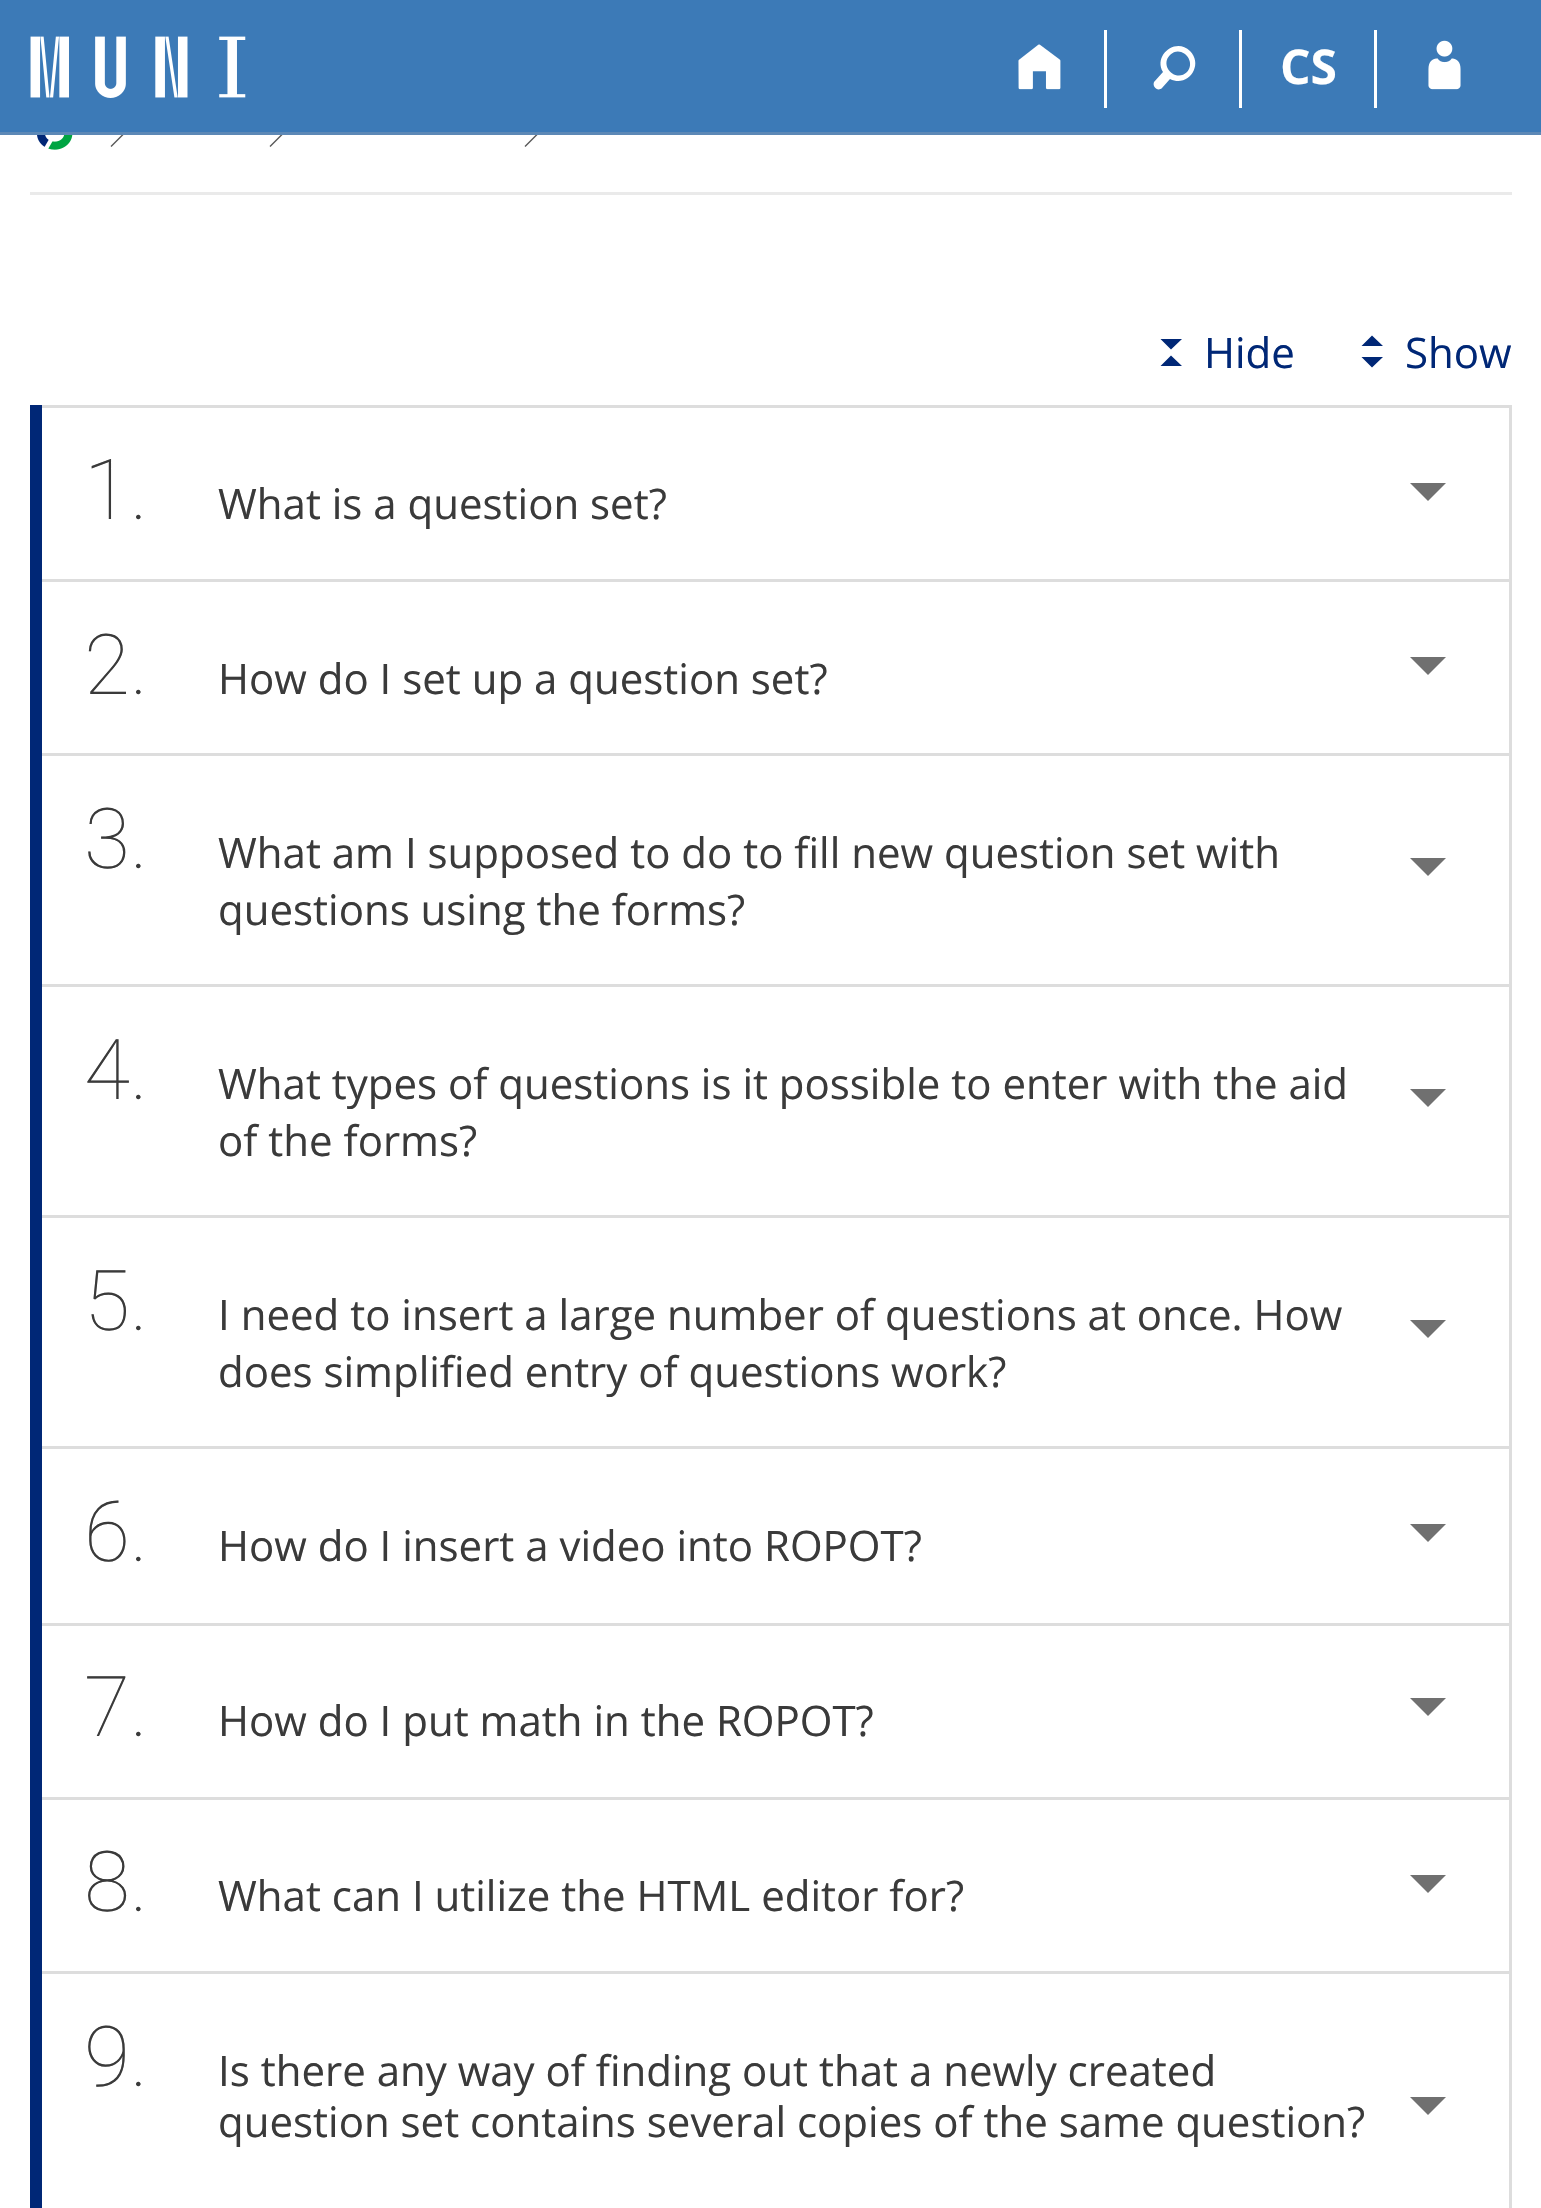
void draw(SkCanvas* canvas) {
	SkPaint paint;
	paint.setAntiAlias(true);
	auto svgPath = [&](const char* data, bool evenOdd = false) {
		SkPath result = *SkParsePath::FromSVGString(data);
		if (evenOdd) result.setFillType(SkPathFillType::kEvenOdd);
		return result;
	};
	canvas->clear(0xffffffff);
	paint.setColor(0xff5a5a5a);
	canvas->drawPath(svgPath("M111.5 147L110.5 146L123 133.5L110.5 121L111.5 119.5L125 133.5Z"), paint);
	canvas->drawPath(svgPath("M270.5 147L269.5 146L282 133.5L269.5 121L270.5 119.5L284 133.5Z"), paint);
	canvas->drawPath(svgPath("M525.5 147L524.5 146L537 133.5L524.5 121L525.5 119.5L539 133.5Z"), paint);
	paint.setColor(0xff3c7ab7);
	canvas->drawRect(SkRect::MakeXYWH(0, 0, 1541, 132), paint);
	paint.setColor(0xff5c88b6);
	canvas->drawRect(SkRect::MakeXYWH(0, 132, 1541, 3), paint);
	canvas->drawImageRect(SkImages::DeferredFromEncodedData(SkData::MakeFromFileName("img1.png")), SkRect::MakeXYWH(30, 36, 216, 62), SkSamplingOptions());
	paint.setColor(0xffffffff);
	canvas->drawRect(SkRect::MakeXYWH(1104, 30, 3, 78), paint);
	canvas->drawImageRect(SkImages::DeferredFromEncodedData(SkData::MakeFromFileName("img2.png")), SkRect::MakeXYWH(1018, 44, 43, 46), SkSamplingOptions());
	canvas->drawRect(SkRect::MakeXYWH(1239, 30, 3, 78), paint);
	canvas->drawPath(svgPath("M1190 51C1176 37 1153 55 1163 72L1154 82C1152 87 1158 92 1162 88L1170 79C1188 88 1204 65 1190 51ZM1187 72C1176 83 1159 66 1170 55C1181 44 1197 61 1187 72Z"), paint);
	canvas->drawRect(SkRect::MakeXYWH(1374, 30, 3, 78), paint);
	SkFont f1(fontMgr->matchFamilyStyle("Open Sans", SkFontStyle::Bold()), 48);
	f1.setSubpixel(true);
	canvas->drawString("CS", 1280, 84, f1, paint);
	canvas->drawImageRect(SkImages::DeferredFromEncodedData(SkData::MakeFromFileName("img3.png")), SkRect::MakeXYWH(1428, 40, 33, 50), SkSamplingOptions());
	canvas->drawImageRect(SkImages::DeferredFromEncodedData(SkData::MakeFromFileName("img4.png")), SkRect::MakeXYWH(37, 135, 36, 15), SkSamplingOptions());
	paint.setColor(0xffeaeaea);
	canvas->drawRect(SkRect::MakeXYWH(30, 192, 1482, 3), paint);
	paint.setColor(0xff002776);
	canvas->drawPath(svgPath("M1160.5 366L1171 355.5L1182 366ZM1182 339L1171 349.5L1160.5 339Z"), paint);
	SkFont f2(fontMgr->matchFamilyStyle("Open Sans", SkFontStyle::Normal()), 42);
	f2.setSubpixel(true);
	canvas->drawString("Hide", 1204, 368, f2, paint);
	canvas->drawPath(svgPath("M1383 357L1372 367.5L1361.5 357ZM1361.5 346L1372 335.5L1383 346Z"), paint);
	canvas->drawString("Show", 1405, 368, f2, paint);
	canvas->drawRect(SkRect::MakeXYWH(30, 405, 12, 1803), paint);
	paint.setColor(0xffdddddd);
	canvas->drawRect(SkRect::MakeXYWH(42, 405, 1470, 3), paint);
	canvas->drawRect(SkRect::MakeXYWH(1509, 405, 3, 174), paint);
	SkFont f3(fontMgr->matchFamilyStyle("Roboto", SkFontStyle(100, SkFontStyle::kNormal_Width, SkFontStyle::kUpright_Slant)), 84);
	f3.setSubpixel(true);
	paint.setColor(0xff3a3a3a);
	canvas->drawString("1.", 84, 519, f3, paint);
	canvas->drawString("What is a question set?", 218, 519, f2, paint);
	paint.setColor(0xff707070);
	canvas->drawPath(svgPath("M1410 483H1446L1428 501Z"), paint);
	paint.setColor(0xffdddddd);
	canvas->drawRect(SkRect::MakeXYWH(42, 579, 1470, 3), paint);
	canvas->drawRect(SkRect::MakeXYWH(1509, 579, 3, 174), paint);
	paint.setColor(0xff3a3a3a);
	canvas->drawString("2.", 84, 694, f3, paint);
	canvas->drawString("How do I set up a question set?", 218, 694, f2, paint);
	paint.setColor(0xff707070);
	canvas->drawPath(svgPath("M1410 657H1446L1428 675Z"), paint);
	paint.setColor(0xffdddddd);
	canvas->drawRect(SkRect::MakeXYWH(42, 753, 1470, 3), paint);
	canvas->drawRect(SkRect::MakeXYWH(1509, 753, 3, 231), paint);
	paint.setColor(0xff3a3a3a);
	canvas->drawString("3.", 84, 868, f3, paint);
	canvas->drawString("What am I supposed to do to fill new question set with", 218, 868, f2, paint);
	paint.setColor(0xff707070);
	canvas->drawPath(svgPath("M1410 858H1446L1428 876Z"), paint);
	paint.setColor(0xff3a3a3a);
	canvas->drawString("questions using the forms?", 218, 925, f2, paint);
	paint.setColor(0xffdddddd);
	canvas->drawRect(SkRect::MakeXYWH(42, 984, 1470, 3), paint);
	canvas->drawRect(SkRect::MakeXYWH(1509, 984, 3, 231), paint);
	paint.setColor(0xff3a3a3a);
	canvas->drawString("4.", 84, 1099, f3, paint);
	canvas->drawString("What types of questions is it possible to enter with the aid", 218, 1099, f2, paint);
	paint.setColor(0xff707070);
	canvas->drawPath(svgPath("M1410 1089H1446L1428 1107Z"), paint);
	paint.setColor(0xff3a3a3a);
	canvas->drawString("of the forms?", 218, 1156, f2, paint);
	paint.setColor(0xffdddddd);
	canvas->drawRect(SkRect::MakeXYWH(42, 1215, 1470, 3), paint);
	canvas->drawRect(SkRect::MakeXYWH(1509, 1215, 3, 231), paint);
	paint.setColor(0xff3a3a3a);
	canvas->drawString("5.", 84, 1330, f3, paint);
	canvas->drawString("I need to insert a large number of questions at once. How", 218, 1330, f2, paint);
	paint.setColor(0xff707070);
	canvas->drawPath(svgPath("M1410 1320H1446L1428 1338Z"), paint);
	paint.setColor(0xff3a3a3a);
	canvas->drawString("does simplified entry of questions work?", 218, 1387, f2, paint);
	paint.setColor(0xffdddddd);
	canvas->drawRect(SkRect::MakeXYWH(42, 1446, 1470, 3), paint);
	canvas->drawRect(SkRect::MakeXYWH(1509, 1446, 3, 177), paint);
	paint.setColor(0xff3a3a3a);
	canvas->drawString("6.", 84, 1561, f3, paint);
	canvas->drawString("How do I insert a video into ROPOT?", 218, 1561, f2, paint);
	paint.setColor(0xff707070);
	canvas->drawPath(svgPath("M1410 1524H1446L1428 1542Z"), paint);
	paint.setColor(0xffdddddd);
	canvas->drawRect(SkRect::MakeXYWH(42, 1623, 1470, 3), paint);
	canvas->drawRect(SkRect::MakeXYWH(1509, 1623, 3, 174), paint);
	paint.setColor(0xff3a3a3a);
	canvas->drawString("7.", 84, 1736, f3, paint);
	canvas->drawString("How do I put math in the ROPOT?", 218, 1736, f2, paint);
	paint.setColor(0xff707070);
	canvas->drawPath(svgPath("M1410 1698H1446L1428 1716Z"), paint);
	paint.setColor(0xffdddddd);
	canvas->drawRect(SkRect::MakeXYWH(42, 1797, 1470, 3), paint);
	canvas->drawRect(SkRect::MakeXYWH(1509, 1797, 3, 174), paint);
	paint.setColor(0xff3a3a3a);
	canvas->drawString("8.", 84, 1911, f3, paint);
	canvas->drawString("What can I utilize the HTML editor for?", 218, 1911, f2, paint);
	paint.setColor(0xff707070);
	canvas->drawPath(svgPath("M1410 1875H1446L1428 1893Z"), paint);
	paint.setColor(0xffdddddd);
	canvas->drawRect(SkRect::MakeXYWH(42, 1971, 1470, 3), paint);
	canvas->drawRect(SkRect::MakeXYWH(1509, 1971, 3, 237), paint);
	paint.setColor(0xff3a3a3a);
	canvas->drawString("9.", 84, 2086, f3, paint);
	canvas->drawString("Is there any way of finding out that a newly created", 218, 2086, f2, paint);
	canvas->drawString("question set contains several copies of the same question?", 218, 2137, f2, paint);
	paint.setColor(0xff707070);
	canvas->drawPath(svgPath("M1410 2097H1446L1428 2115Z"), paint);
}
